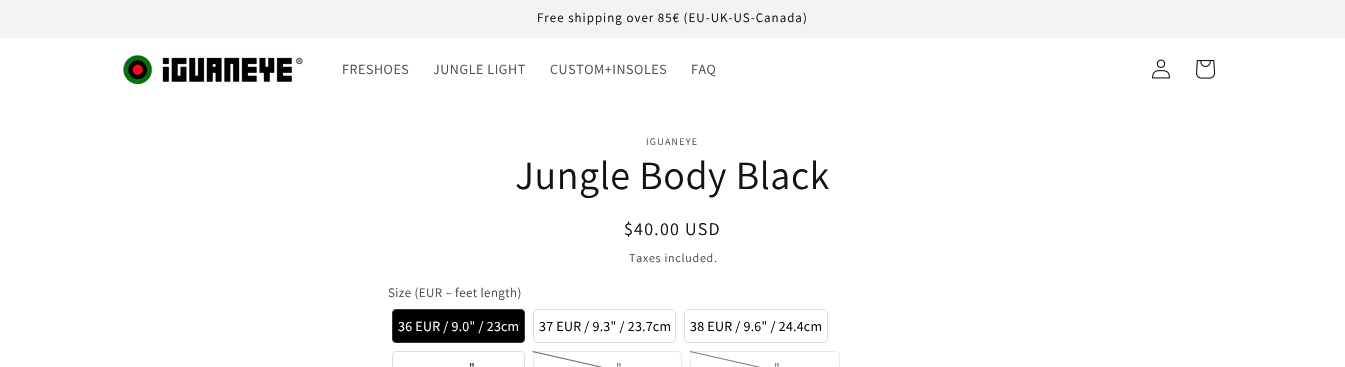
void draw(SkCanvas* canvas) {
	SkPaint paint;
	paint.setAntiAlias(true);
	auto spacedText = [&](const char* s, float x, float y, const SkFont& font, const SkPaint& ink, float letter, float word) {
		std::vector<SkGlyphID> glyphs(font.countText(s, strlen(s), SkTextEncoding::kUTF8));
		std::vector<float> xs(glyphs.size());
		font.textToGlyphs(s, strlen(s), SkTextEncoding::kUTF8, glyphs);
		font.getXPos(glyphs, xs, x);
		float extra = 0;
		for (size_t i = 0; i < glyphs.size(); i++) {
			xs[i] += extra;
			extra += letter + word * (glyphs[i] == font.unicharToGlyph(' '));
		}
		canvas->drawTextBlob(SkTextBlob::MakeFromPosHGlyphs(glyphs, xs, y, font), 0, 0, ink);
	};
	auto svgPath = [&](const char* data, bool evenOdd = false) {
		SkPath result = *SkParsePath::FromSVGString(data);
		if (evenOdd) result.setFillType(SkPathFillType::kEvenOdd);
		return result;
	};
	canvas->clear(0xffffffff);
	paint.setColor(0xfff3f3f3);
	canvas->drawRect(SkRect::MakeXYWH(0, 0, 1345, 38), paint);
	SkFont f1(fontMgr->matchFamilyStyle("Assistant", SkFontStyle::Normal()), 13);
	f1.setSubpixel(true);
	paint.setColor(0xff121212);
	spacedText("Free shipping over 85€ (EU-UK-US-Canada)", 537, 22, f1, paint, 1, 0);
	canvas->drawImageRect(SkImages::DeferredFromEncodedData(SkData::MakeFromFileName("img1.png")), SkRect::MakeXYWH(123, 54, 180, 31), SkSamplingOptions());
	SkFont f2(fontMgr->matchFamilyStyle("Assistant", SkFontStyle::Normal()), 14);
	f2.setSubpixel(true);
	paint.setColor(0xff4d4d4d);
	spacedText("FRESHOES", 342, 74, f2, paint, 0.6, 0);
	spacedText("JUNGLE LIGHT", 433, 74, f2, paint, 0.6, 0);
	spacedText("CUSTOM+INSOLES", 550, 74, f2, paint, 0.6, 0);
	spacedText("FAQ", 691, 74, f2, paint, 0.6, 0);
	canvas->drawImageRect(SkImages::DeferredFromEncodedData(SkData::MakeFromFileName("img2.png")), SkRect::MakeXYWH(1152, 59, 18, 20), SkSamplingOptions());
	canvas->drawImageRect(SkImages::DeferredFromEncodedData(SkData::MakeFromFileName("img3.png")), SkRect::MakeXYWH(1196, 60, 20, 19), SkSamplingOptions());
	SkFont f3(fontMgr->matchFamilyStyle("Assistant", SkFontStyle::Normal()), 10);
	f3.setSubpixel(true);
	spacedText("IGUANEYE", 646, 145, f3, paint, 1.25, 0);
	SkFont f4(fontMgr->matchFamilyStyle("Assistant", SkFontStyle::Normal()), 40);
	f4.setSubpixel(true);
	paint.setColor(0xff121212);
	spacedText("Jungle Body Black", 515, 189, f4, paint, 0.6, 0);
	SkFont f5(fontMgr->matchFamilyStyle("Assistant", SkFontStyle::Normal()), 18);
	f5.setSubpixel(true);
	spacedText("$40.00 USD", 624, 235, f5, paint, 1.25, 0);
	SkFont f6(fontMgr->matchFamilyStyle("Assistant", SkFontStyle::Normal()), 12);
	f6.setSubpixel(true);
	paint.setColor(0xff4d4d4d);
	spacedText("Taxes included.", 629, 262, f6, paint, 0.75, 0);
	spacedText("Size (EUR – feet length)", 388, 297, f1, paint, 0.4, 0);
	paint.setColor(0xff000000);
	canvas->drawRoundRect(SkRect::MakeXYWH(392.5, 309.5, 132, 33), 3.5, 3.5, paint);
	paint.setStroke(true);
	paint.setStrokeWidth(1);
	paint.setColor(0xff323232);
	canvas->drawRoundRect(SkRect::MakeXYWH(392.5, 309.5, 132, 33), 3.5, 3.5, paint);
	paint.setStroke(false);
	paint.setColor(0xffffffff);
	spacedText("36 EUR / 9.0\" / 23cm", 398, 331, f2, paint, 0.25, 0);
	paint.setStroke(true);
	paint.setColor(0xffdcdcdc);
	canvas->drawRoundRect(SkRect::MakeXYWH(533.5, 309.5, 142, 33), 3.5, 3.5, paint);
	paint.setStroke(false);
	paint.setColor(0xff000000);
	spacedText("37 EUR / 9.3\" / 23.7cm", 539, 331, f2, paint, 0.25, 0);
	paint.setStroke(true);
	paint.setColor(0xffdcdcdc);
	canvas->drawRoundRect(SkRect::MakeXYWH(684.5, 309.5, 143, 33), 3.5, 3.5, paint);
	paint.setStroke(false);
	paint.setColor(0xff000000);
	spacedText("38 EUR / 9.6\" / 24.4cm", 690, 331, f2, paint, 0.25, 0);
	paint.setStroke(true);
	paint.setColor(0xffdcdcdc);
	canvas->drawRoundRect(SkRect::MakeXYWH(392.5, 351.5, 132, 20), 3.5, 3.5, paint);
	paint.setStroke(false);
	paint.setColor(0xff000000);
	spacedText("\"", 469, 373, f2, paint, 0.25, 0);
	paint.setStroke(true);
	paint.setColor(0xffeaeaea);
	canvas->drawRoundRect(SkRect::MakeXYWH(533.5, 351.5, 148, 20), 3.5, 3.5, paint);
	paint.setStroke(false);
	paint.setColor(0xff757575);
	canvas->drawPath(svgPath("M533 351L682 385V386L532 352Z"), paint);
	paint.setColor(0xff666666);
	spacedText("\"", 616, 373, f2, paint, 0.25, 0);
	paint.setStroke(true);
	paint.setColor(0xffeaeaea);
	canvas->drawRoundRect(SkRect::MakeXYWH(690.5, 351.5, 149, 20), 3.5, 3.5, paint);
	paint.setStroke(false);
	paint.setColor(0xff757575);
	canvas->drawPath(svgPath("M690 351L840 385V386L690 352Z"), paint);
	paint.setColor(0xff666666);
	spacedText("\"", 774, 373, f2, paint, 0.25, 0);
}
